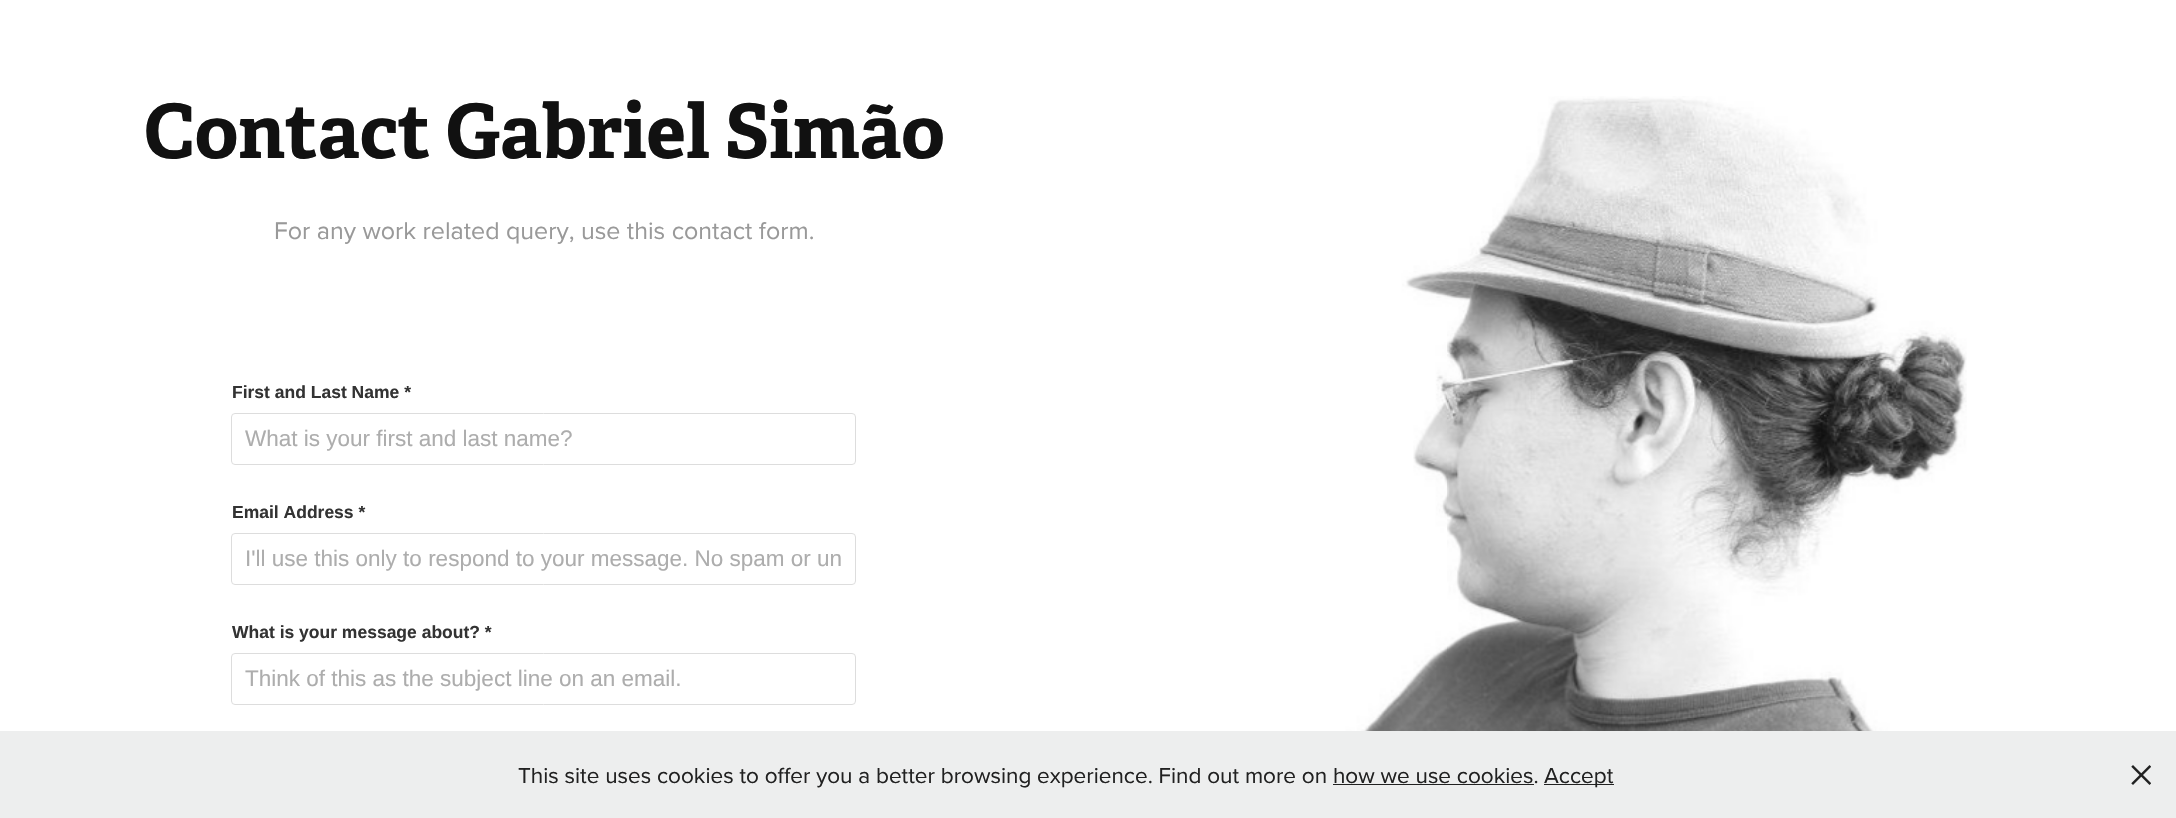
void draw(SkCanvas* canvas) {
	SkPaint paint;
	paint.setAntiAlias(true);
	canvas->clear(0xffffffff);
	SkFont f1(fontMgr->matchFamilyStyle("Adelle", SkFontStyle::Bold()), 75);
	f1.setSubpixel(true);
	paint.setColor(0xff111111);
	canvas->drawString("Contact Gabriel Simão", 144, 158, f1, paint);
	SkFont f2(fontMgr->matchFamilyStyle("Proxima Nova", SkFontStyle::Normal()), 25);
	f2.setSubpixel(true);
	paint.setColor(0xff999999);
	canvas->drawString("For any work related query, use this contact form.", 274, 239, f2, paint);
	SkFont f3(fontMgr->matchFamilyStyle("Liberation Sans", SkFontStyle::Bold()), 17.5);
	f3.setSubpixel(true);
	paint.setColor(0xff333333);
	canvas->drawString("First and Last Name *", 232, 398, f3, paint);
	paint.setStroke(true);
	paint.setStrokeWidth(1);
	paint.setColor(0xffdddddd);
	canvas->drawRoundRect(SkRect::MakeXYWH(231.5, 413.5, 624, 51), 3.5, 3.5, paint);
	SkFont f4(fontMgr->matchFamilyStyle("Liberation Sans", SkFontStyle::Normal()), 22.5);
	f4.setSubpixel(true);
	paint.setStroke(false);
	paint.setColor(0xffadadad);
	canvas->drawString("What is your first and last name?", 245, 446, f4, paint);
	paint.setColor(0xff333333);
	canvas->drawString("Email Address *", 232, 518, f3, paint);
	paint.setStroke(true);
	paint.setColor(0xffdddddd);
	canvas->drawRoundRect(SkRect::MakeXYWH(231.5, 533.5, 624, 51), 3.5, 3.5, paint);
	paint.setStroke(false);
	paint.setColor(0xffadadad);
	canvas->drawString("I'll use this only to respond to your message. No spam or un", 245, 566, f4, paint);
	paint.setColor(0xff333333);
	canvas->drawString("What is your message about? *", 232, 638, f3, paint);
	paint.setStroke(true);
	paint.setColor(0xffdddddd);
	canvas->drawRoundRect(SkRect::MakeXYWH(231.5, 653.5, 624, 51), 3.5, 3.5, paint);
	paint.setStroke(false);
	paint.setColor(0xffadadad);
	canvas->drawString("Think of this as the subject line on an email.", 245, 686, f4, paint);
	canvas->drawImageRect(SkImages::DeferredFromEncodedData(SkData::MakeFromFileName("img1.png")), SkRect::MakeXYWH(1177, 96, 790, 635), SkSamplingOptions());
	paint.setColor(0xffedeeee);
	canvas->drawRect(SkRect::MakeXYWH(0, 731, 2176, 87), paint);
	SkFont f5(fontMgr->matchFamilyStyle("Proxima Nova", SkFontStyle::Normal()), 22.5);
	f5.setSubpixel(true);
	paint.setColor(0xff212121);
	canvas->drawString("This site uses cookies to offer you a better browsing experience. Find out more on how we use cookies.", 518, 783, f5, paint);
	canvas->drawRect(SkRect::MakeXYWH(1544, 784, 70, 1), paint);
	canvas->drawString("Accept", 1544, 783, f5, paint);
	canvas->drawRect(SkRect::MakeXYWH(1333, 784, 201, 1), paint);
	canvas->drawImageRect(SkImages::DeferredFromEncodedData(SkData::MakeFromFileName("img2.png")), SkRect::MakeXYWH(2131, 765, 20, 20), SkSamplingOptions());
}
